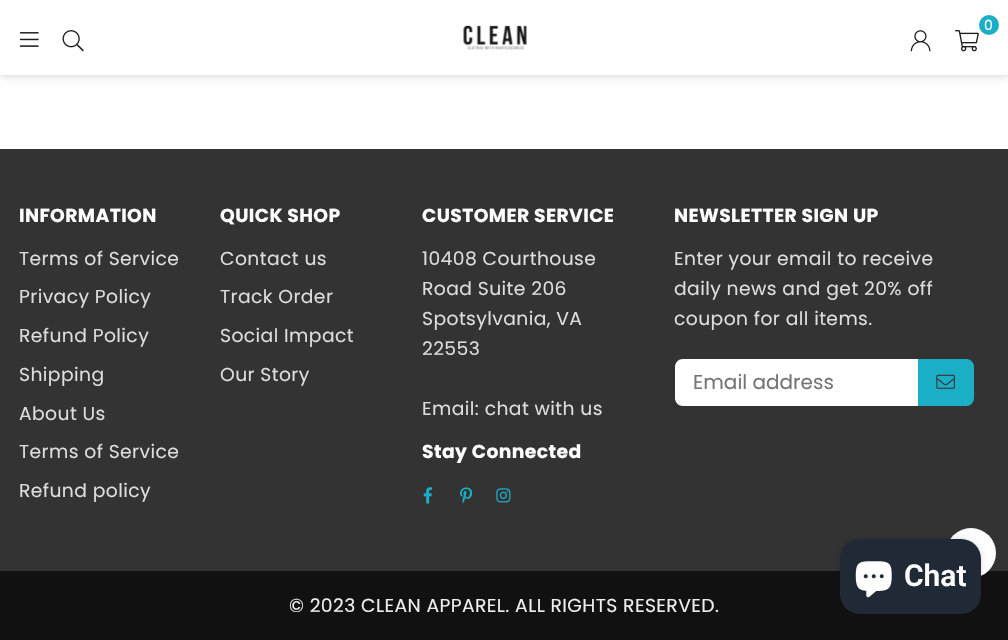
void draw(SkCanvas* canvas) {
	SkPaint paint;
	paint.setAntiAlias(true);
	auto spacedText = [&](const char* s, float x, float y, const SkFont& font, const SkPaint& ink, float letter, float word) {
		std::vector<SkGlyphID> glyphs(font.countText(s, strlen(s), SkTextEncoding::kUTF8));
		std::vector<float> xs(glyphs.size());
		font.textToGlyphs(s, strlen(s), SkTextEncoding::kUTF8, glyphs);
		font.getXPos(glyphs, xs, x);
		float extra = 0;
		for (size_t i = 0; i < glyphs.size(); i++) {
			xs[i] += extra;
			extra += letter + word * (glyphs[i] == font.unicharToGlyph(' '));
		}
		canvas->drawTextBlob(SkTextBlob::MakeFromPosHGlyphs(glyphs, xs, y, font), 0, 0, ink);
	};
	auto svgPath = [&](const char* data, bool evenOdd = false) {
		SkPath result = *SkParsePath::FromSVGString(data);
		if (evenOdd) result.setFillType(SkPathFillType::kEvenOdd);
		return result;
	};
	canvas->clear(0xffffffff);
	paint.setColor(0x33000000);
	paint.setMaskFilter(SkMaskFilter::MakeBlur(kNormal_SkBlurStyle, 4.5));
	canvas->drawRect(SkRect::MakeXYWH(0, 0, 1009, 75), paint);
	paint.setMaskFilter(nullptr);
	paint.setColor(0xffffffff);
	canvas->drawRect(SkRect::MakeXYWH(0, 0, 1008, 75), paint);
	canvas->drawImageRect(SkImages::DeferredFromEncodedData(SkData::MakeFromFileName("img1.png")), SkRect::MakeXYWH(20, 32, 19, 15), SkSamplingOptions());
	canvas->drawImageRect(SkImages::DeferredFromEncodedData(SkData::MakeFromFileName("img2.png")), SkRect::MakeXYWH(62, 30, 22, 22), SkSamplingOptions());
	canvas->drawImageRect(SkImages::DeferredFromEncodedData(SkData::MakeFromFileName("img3.png")), SkRect::MakeXYWH(463, 25, 64, 25), SkSamplingOptions());
	paint.setColor(0xff1aafc6);
	canvas->drawCircle(989, 25, 10, paint);
	SkFont f1(fontMgr->matchFamilyStyle("Poppins", SkFontStyle::Normal()), 14);
	f1.setSubpixel(true);
	paint.setColor(0xffffffff);
	spacedText("0", 984, 30, f1, paint, 0.4, 0);
	canvas->drawImageRect(SkImages::DeferredFromEncodedData(SkData::MakeFromFileName("img4.png")), SkRect::MakeXYWH(955, 30, 24, 22), SkSamplingOptions());
	canvas->drawImageRect(SkImages::DeferredFromEncodedData(SkData::MakeFromFileName("img5.png")), SkRect::MakeXYWH(910, 30, 21, 22), SkSamplingOptions());
	paint.setColor(0xff333333);
	canvas->drawRect(SkRect::MakeXYWH(0, 149, 1008, 422), paint);
	SkFont f2(fontMgr->matchFamilyStyle("Poppins", SkFontStyle::Bold()), 18.75);
	f2.setSubpixel(true);
	paint.setColor(0xffffffff);
	spacedText("INFORMATION", 19, 222, f2, paint, 0.4, 0);
	SkFont f3(fontMgr->matchFamilyStyle("Poppins", SkFontStyle::Normal()), 18.75);
	f3.setSubpixel(true);
	paint.setColor(0xffdddddd);
	spacedText("Terms of Service", 19, 265, f3, paint, 0.4, 0);
	spacedText("Privacy Policy", 19, 303, f3, paint, 0.4, 0);
	spacedText("Refund Policy", 19, 342, f3, paint, 0.4, 0);
	spacedText("Shipping", 19, 381, f3, paint, 0.4, 0);
	spacedText("About Us", 19, 420, f3, paint, 0.4, 0);
	spacedText("Terms of Service", 19, 458, f3, paint, 0.4, 0);
	spacedText("Refund policy", 19, 497, f3, paint, 0.4, 0);
	paint.setColor(0xffffffff);
	spacedText("QUICK SHOP", 220, 222, f2, paint, 0.4, 0);
	paint.setColor(0xffdddddd);
	spacedText("Contact us", 220, 265, f3, paint, 0.4, 0);
	spacedText("Track Order", 220, 303, f3, paint, 0.4, 0);
	spacedText("Social Impact", 220, 342, f3, paint, 0.4, 0);
	spacedText("Our Story", 220, 381, f3, paint, 0.4, 0);
	paint.setColor(0xffffffff);
	spacedText("CUSTOMER SERVICE", 422, 222, f2, paint, 0.4, 0);
	paint.setColor(0xffdddddd);
	spacedText("10408 Courthouse", 422, 265, f3, paint, 0.4, 0);
	spacedText("Road Suite 206", 422, 295, f3, paint, 0.4, 0);
	spacedText("Spotsylvania, VA", 422, 325, f3, paint, 0.4, 0);
	spacedText("22553", 422, 355, f3, paint, 0.4, 0);
	spacedText("Email: chat with us", 422, 415, f3, paint, 0.4, 0);
	paint.setColor(0xffffffff);
	spacedText("Stay Connected", 422, 458, f2, paint, 0.4, 0);
	canvas->drawImageRect(SkImages::DeferredFromEncodedData(SkData::MakeFromFileName("img6.png")), SkRect::MakeXYWH(423, 487, 10, 17), SkSamplingOptions());
	canvas->drawImageRect(SkImages::DeferredFromEncodedData(SkData::MakeFromFileName("img7.png")), SkRect::MakeXYWH(460, 487, 13, 17), SkSamplingOptions());
	canvas->drawImageRect(SkImages::DeferredFromEncodedData(SkData::MakeFromFileName("img8.png")), SkRect::MakeXYWH(496, 488, 15, 15), SkSamplingOptions());
	spacedText("NEWSLETTER SIGN UP", 674, 222, f2, paint, 0.4, 0);
	paint.setColor(0xffdddddd);
	spacedText("Enter your email to receive", 674, 265, f3, paint, 0.4, 0);
	spacedText("daily news and get 20% off", 674, 295, f3, paint, 0.4, 0);
	spacedText("coupon for all items.", 674, 325, f3, paint, 0.4, 0);
	paint.setColor(0xffffffff);
	canvas->drawPath(svgPath("M683 359H918V406H683C678.5 406 675 402.5 675 398V367C675 362.5 678.5 359 683 359Z"), paint);
	SkFont f4(fontMgr->matchFamilyStyle("Poppins", SkFontStyle::Normal()), 20);
	f4.setSubpixel(true);
	paint.setColor(0xff757575);
	canvas->drawString("Email address", 693, 389, f4, paint);
	paint.setColor(0xff1aafc6);
	canvas->drawPath(svgPath("M918 359H966C970.5 359 974 362.5 974 367V398C974 402.5 970.5 406 966 406H918Z"), paint);
	canvas->drawImageRect(SkImages::DeferredFromEncodedData(SkData::MakeFromFileName("img9.png")), SkRect::MakeXYWH(936, 374, 19, 15), SkSamplingOptions());
	paint.setColor(0xff111111);
	canvas->drawRect(SkRect::MakeXYWH(0, 571, 1008, 69), paint);
	paint.setColor(0xffeeeeee);
	spacedText("© 2023 CLEAN APPAREL. ALL RIGHTS RESERVED.", 289, 612, f3, paint, 0.4, 0);
	paint.setColor(0xffffffff);
	canvas->drawCircle(971, 553, 25, paint);
	canvas->drawImageRect(SkImages::DeferredFromEncodedData(SkData::MakeFromFileName("img11.png")), SkRect::MakeXYWH(979, 552, 1, 1), SkSamplingOptions());
	paint.setColor(0x26000000);
	paint.setMaskFilter(SkMaskFilter::MakeBlur(kNormal_SkBlurStyle, 3));
	canvas->drawRoundRect(SkRect::MakeXYWH(840, 539, 141, 75), 20, 20, paint);
	paint.setMaskFilter(nullptr);
	paint.setColor(0xff202a36);
	canvas->drawRoundRect(SkRect::MakeXYWH(840, 539, 141, 75), 20, 20, paint);
	canvas->drawImageRect(SkImages::DeferredFromEncodedData(SkData::MakeFromFileName("img10.png")), SkRect::MakeXYWH(855, 561, 37, 37), SkSamplingOptions());
	SkFont f5(fontMgr->matchFamilyStyle("Roboto", SkFontStyle(600, SkFontStyle::kNormal_Width, SkFontStyle::kUpright_Slant)), 30);
	f5.setSubpixel(true);
	paint.setColor(0xffffffff);
	canvas->drawString("Chat", 904, 586, f5, paint);
}
